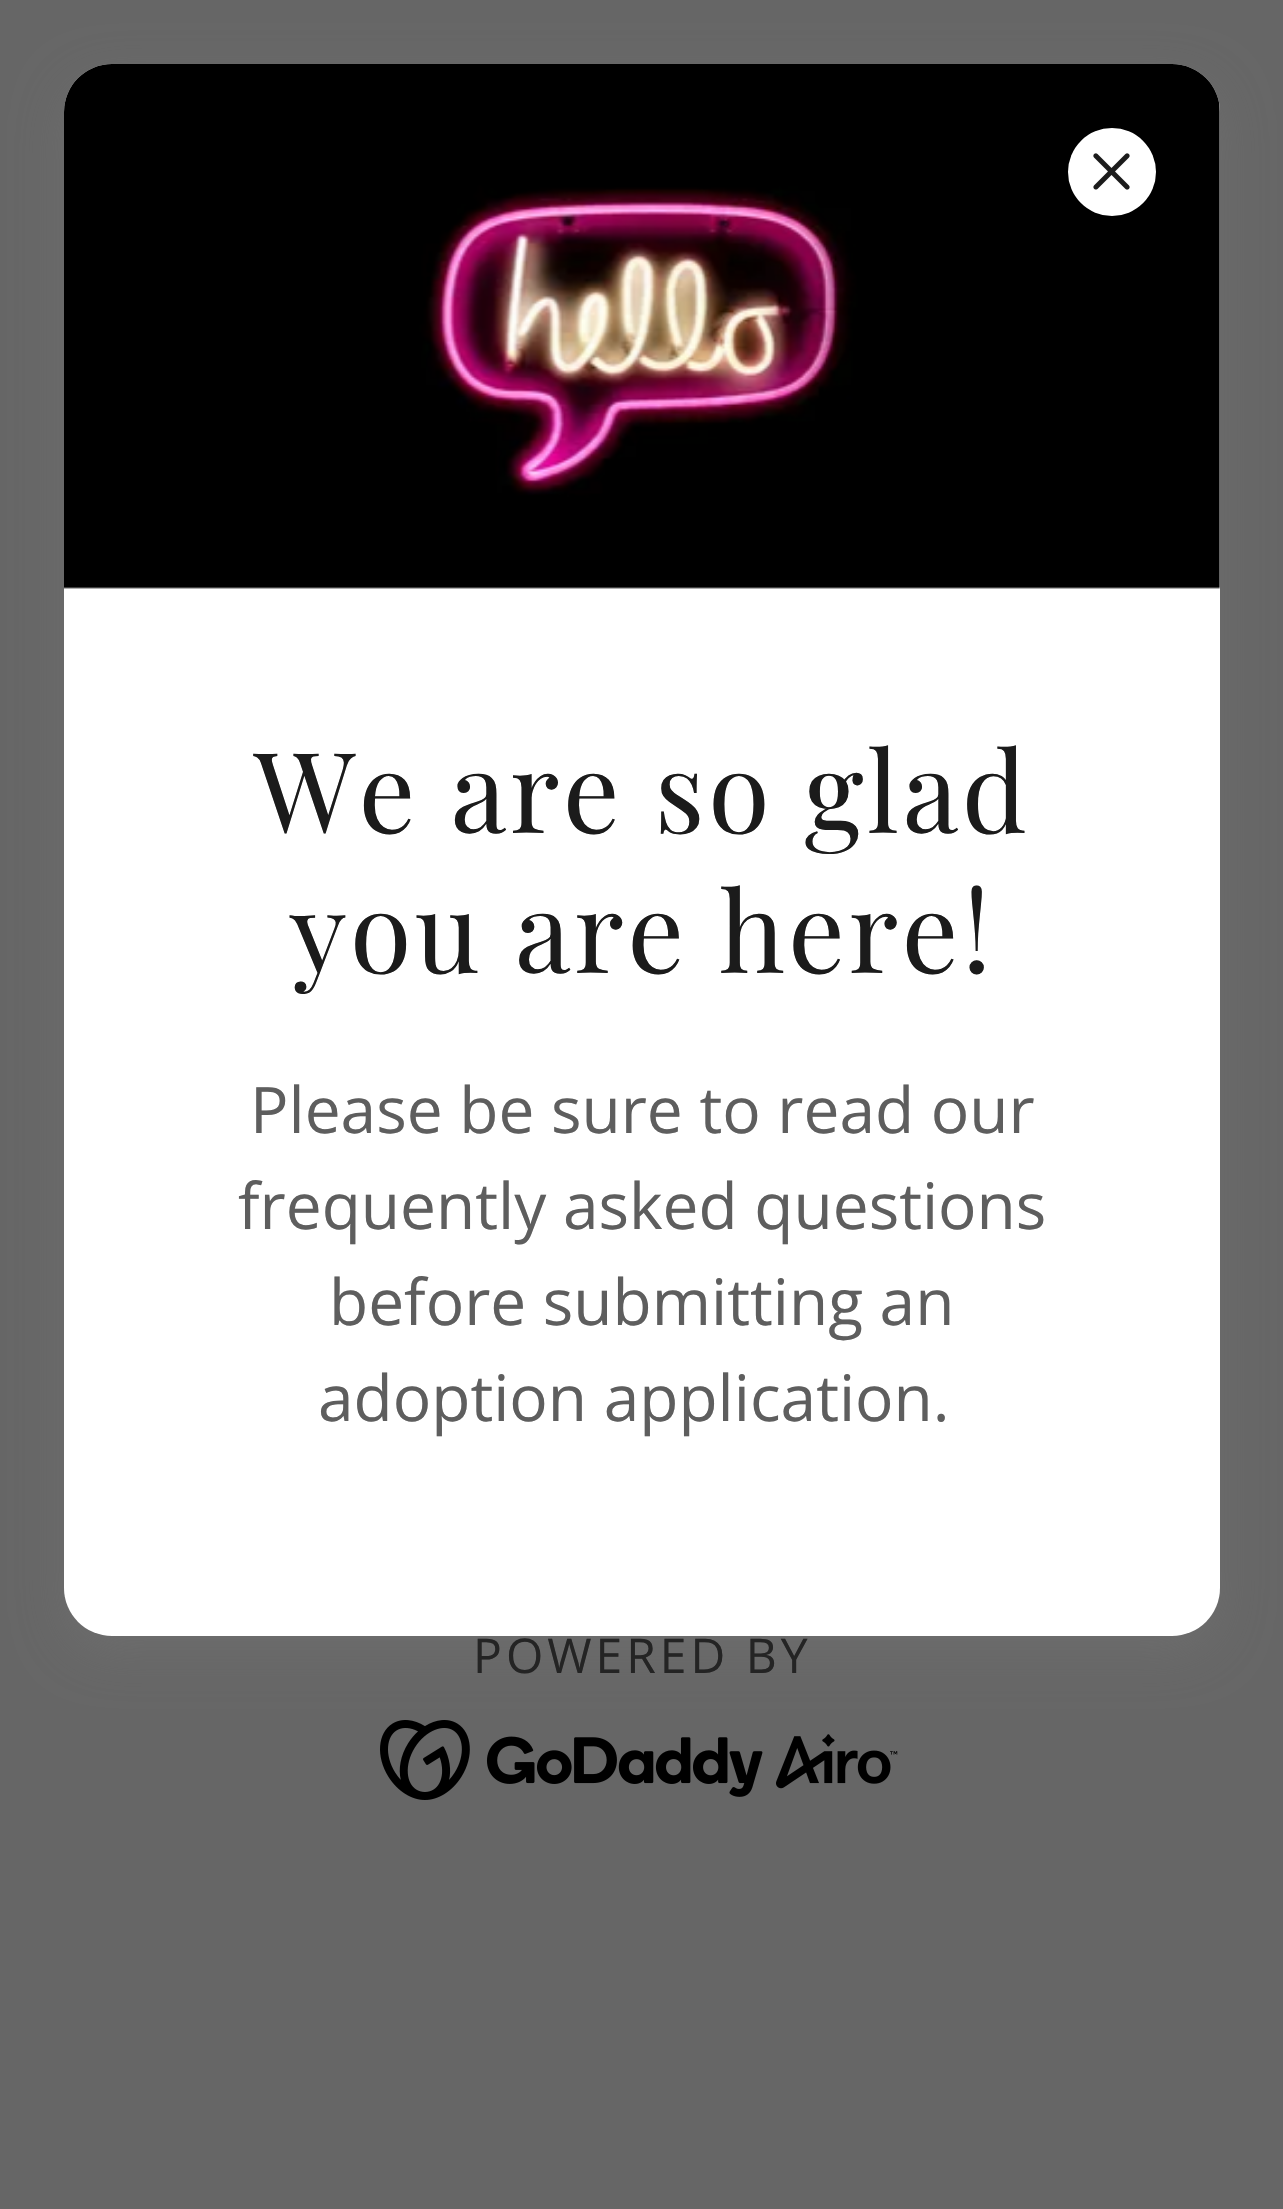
void draw(SkCanvas* canvas) {
	SkPaint paint;
	paint.setAntiAlias(true);
	auto spacedText = [&](const char* s, float x, float y, const SkFont& font, const SkPaint& ink, float letter, float word) {
		std::vector<SkGlyphID> glyphs(font.countText(s, strlen(s), SkTextEncoding::kUTF8));
		std::vector<float> xs(glyphs.size());
		font.textToGlyphs(s, strlen(s), SkTextEncoding::kUTF8, glyphs);
		font.getXPos(glyphs, xs, x);
		float extra = 0;
		for (size_t i = 0; i < glyphs.size(); i++) {
			xs[i] += extra;
			extra += letter + word * (glyphs[i] == font.unicharToGlyph(' '));
		}
		canvas->drawTextBlob(SkTextBlob::MakeFromPosHGlyphs(glyphs, xs, y, font), 0, 0, ink);
	};
	canvas->clear(0xff666666);
	canvas->drawImageRect(SkImages::DeferredFromEncodedData(SkData::MakeFromFileName("img3.png")), SkRect::MakeXYWH(380, 1720, 518, 80), SkSamplingOptions());
	paint.setColor(0x66757575);
	paint.setMaskFilter(SkMaskFilter::MakeBlur(kNormal_SkBlurStyle, 24));
	canvas->drawRoundRect(SkRect::MakeXYWH(64, 80, 1156, 1572), 48, 48, paint);
	paint.setMaskFilter(nullptr);
	paint.setColor(0xffffffff);
	canvas->drawRoundRect(SkRect::MakeXYWH(64, 64, 1156, 1572), 48, 48, paint);
	canvas->drawImageRect(SkImages::DeferredFromEncodedData(SkData::MakeFromFileName("img2.png")), SkRect::MakeXYWH(64, 64, 1156, 525), SkSamplingOptions());
	canvas->drawCircle(1112, 172, 44, paint);
	canvas->drawImageRect(SkImages::DeferredFromEncodedData(SkData::MakeFromFileName("img1.png")), SkRect::MakeXYWH(1093, 153, 37, 37), SkSamplingOptions());
	SkFont f1(fontMgr->matchFamilyStyle("Playfair Display", SkFontStyle::Normal()), 112);
	f1.setSubpixel(true);
	paint.setColor(0xff1b1b1b);
	spacedText("We are so glad", 254, 833, f1, paint, 3.5, 0);
	spacedText("you are here!", 290, 973, f1, paint, 3.5, 0);
	SkFont f2(fontMgr->matchFamilyStyle("Open Sans", SkFontStyle::Normal()), 64);
	f2.setSubpixel(true);
	paint.setColor(0xff5e5e5e);
	canvas->drawString("Please be sure to read our", 250, 1133, f2, paint);
	canvas->drawString("frequently asked questions", 238, 1229, f2, paint);
	canvas->drawString("before submitting an", 329, 1325, f2, paint);
	canvas->drawString("adoption application.", 318, 1421, f2, paint);
	SkFont f3(fontMgr->matchFamilyStyle("Open Sans", SkFontStyle::Normal()), 48);
	f3.setSubpixel(true);
	paint.setColor(0xff242424);
	spacedText("POWERED BY", 473, 1673, f3, paint, 4, 0);
}
